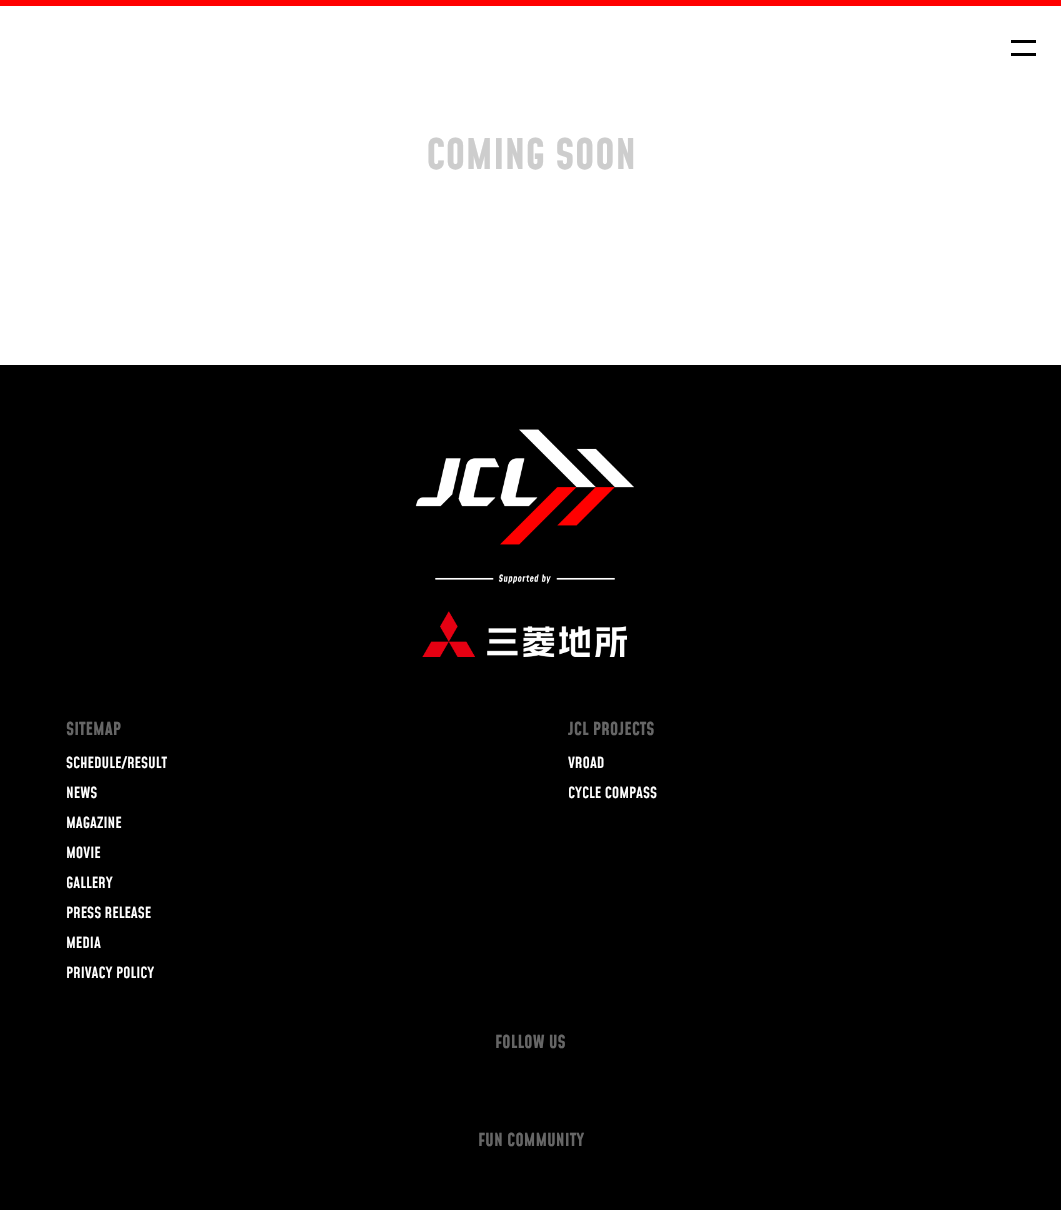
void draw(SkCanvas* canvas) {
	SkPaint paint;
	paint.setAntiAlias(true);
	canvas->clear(0xffffffff);
	paint.setColor(0xffff0000);
	canvas->drawRect(SkRect::MakeXYWH(0, 0, 1061, 6), paint);
	paint.setColor(0xff000000);
	canvas->drawRect(SkRect::MakeXYWH(1011, 40, 25, 3), paint);
	canvas->drawRect(SkRect::MakeXYWH(1011, 53, 25, 3), paint);
	SkFont f1(fontMgr->matchFamilyStyle("Mohave", SkFontStyle::Bold()), 41.25);
	f1.setSubpixel(true);
	paint.setColor(0xffcdcdcd);
	canvas->drawString("COMING SOON", 426, 169, f1, paint);
	paint.setColor(0xff000000);
	canvas->drawRect(SkRect::MakeXYWH(0, 365, 1061, 845), paint);
	canvas->drawImageRect(SkImages::DeferredFromEncodedData(SkData::MakeFromFileName("img1.png")), SkRect::MakeXYWH(415, 429, 219, 228), SkSamplingOptions());
	SkFont f2(fontMgr->matchFamilyStyle("Mohave", SkFontStyle::Bold()), 17.5);
	f2.setSubpixel(true);
	paint.setColor(0xff666666);
	canvas->drawString("SITEMAP", 66, 735, f2, paint);
	SkFont f3(fontMgr->matchFamilyStyle("Mohave", SkFontStyle(600, SkFontStyle::kNormal_Width, SkFontStyle::kUpright_Slant)), 15);
	f3.setSubpixel(true);
	paint.setColor(0xffffffff);
	canvas->drawString("SCHEDULE/RESULT", 66, 768, f3, paint);
	canvas->drawString("NEWS", 66, 798, f3, paint);
	canvas->drawString("MAGAZINE", 66, 828, f3, paint);
	canvas->drawString("MOVIE", 66, 858, f3, paint);
	canvas->drawString("GALLERY", 66, 888, f3, paint);
	canvas->drawString("PRESS RELEASE", 66, 918, f3, paint);
	canvas->drawString("MEDIA", 66, 948, f3, paint);
	canvas->drawString("PRIVACY POLICY", 66, 978, f3, paint);
	paint.setColor(0xff666666);
	canvas->drawString("JCL PROJECTS", 568, 735, f2, paint);
	paint.setColor(0xffffffff);
	canvas->drawString("VROAD", 568, 768, f3, paint);
	canvas->drawString("CYCLE COMPASS", 568, 798, f3, paint);
	paint.setColor(0xff666666);
	canvas->drawString("FOLLOW US", 495, 1048, f2, paint);
	canvas->drawString("FUN COMMUNITY", 478, 1146, f2, paint);
}
